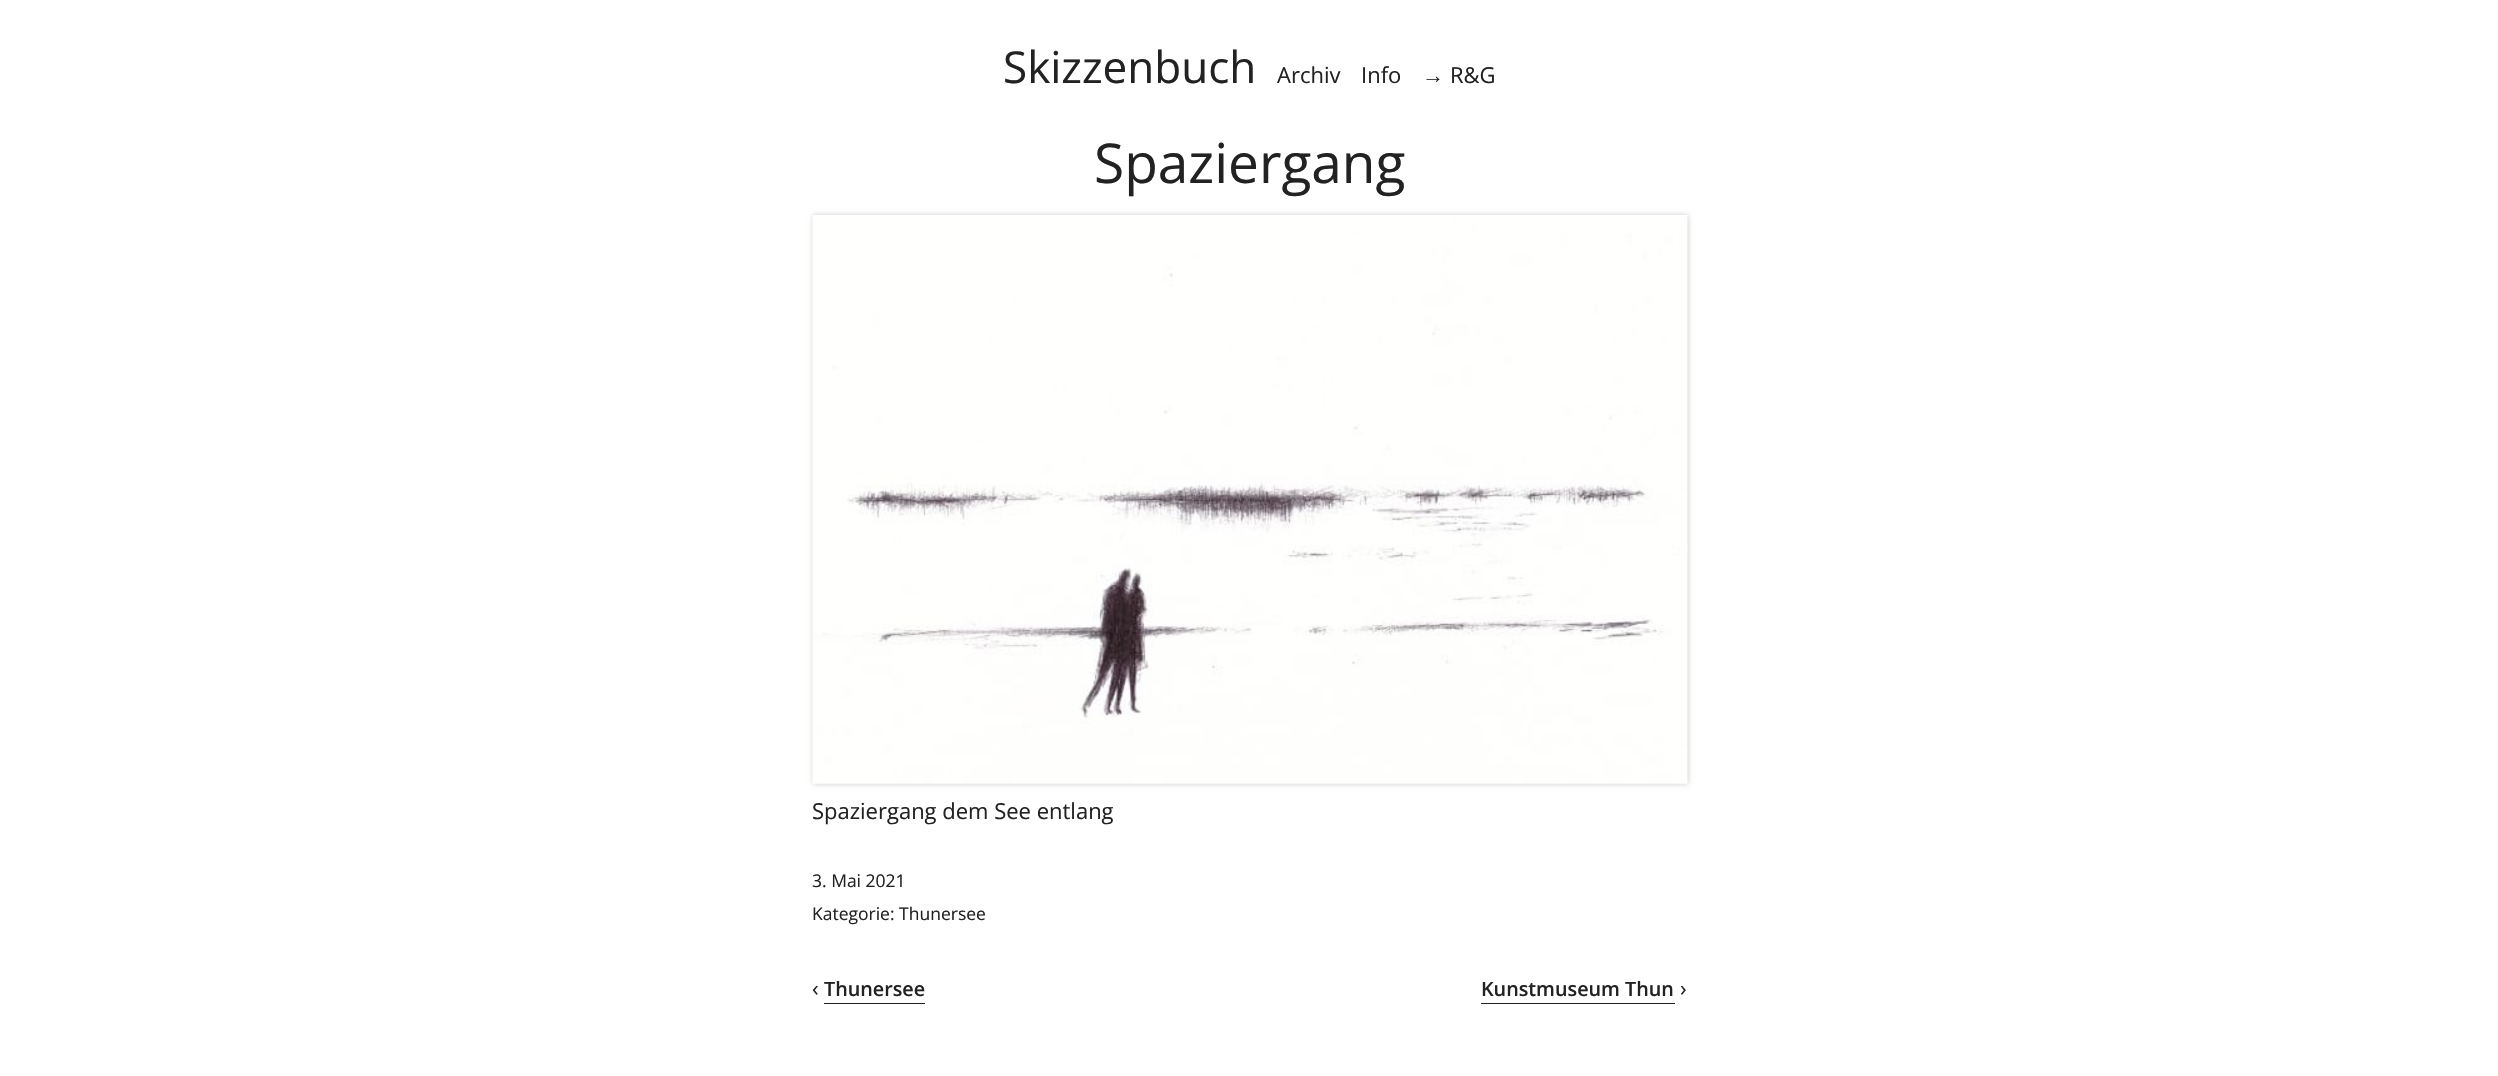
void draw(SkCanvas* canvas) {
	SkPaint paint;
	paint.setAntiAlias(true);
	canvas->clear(0xffffffff);
	SkFont f1(fontMgr->matchFamilyStyle("Open Sans", SkFontStyle::Normal()), 44);
	f1.setSubpixel(true);
	paint.setColor(0xff222222);
	canvas->drawString("Skizzenbuch", 1003, 83, f1, paint);
	SkFont f2(fontMgr->matchFamilyStyle("Open Sans", SkFontStyle::Normal()), 22);
	f2.setSubpixel(true);
	canvas->drawString("Archiv", 1277, 83, f2, paint);
	canvas->drawString("Info", 1361, 83, f2, paint);
	SkFont f3(fontMgr->matchFamilyStyle("Liberation Sans", SkFontStyle::Normal()), 22);
	f3.setSubpixel(true);
	canvas->drawString("→", 1422, 83, f3, paint);
	canvas->drawString("R&G", 1450, 83, f2, paint);
	SkFont f4(fontMgr->matchFamilyStyle("Open Sans", SkFontStyle::Normal()), 55);
	f4.setSubpixel(true);
	canvas->drawString("Spaziergang", 1094, 183, f4, paint);
	paint.setColor(0xffcccccc);
	paint.setMaskFilter(SkMaskFilter::MakeBlur(kNormal_SkBlurStyle, 2.5));
	canvas->drawRect(SkRect::MakeXYWH(813, 215, 875, 569), paint);
	paint.setMaskFilter(nullptr);
	canvas->drawImageRect(SkImages::DeferredFromEncodedData(SkData::MakeFromFileName("img1.png")), SkRect::MakeXYWH(812, 215, 876, 569), SkSamplingOptions());
	paint.setColor(0xff222222);
	canvas->drawString("Spaziergang dem See entlang", 812, 819, f2, paint);
	SkFont f5(fontMgr->matchFamilyStyle("Open Sans", SkFontStyle::Normal()), 17.5);
	f5.setSubpixel(true);
	canvas->drawString("3. Mai 2021", 812, 887, f5, paint);
	canvas->drawString("Kategorie: Thunersee", 812, 920, f5, paint);
	canvas->drawString("‹", 812, 996, f2, paint);
	SkFont f6(fontMgr->matchFamilyStyle("Open Sans", SkFontStyle(600, SkFontStyle::kNormal_Width, SkFontStyle::kUpright_Slant)), 19.75);
	f6.setSubpixel(true);
	canvas->drawString("Thunersee", 824, 996, f6, paint);
	canvas->drawRect(SkRect::MakeXYWH(824, 1003, 101, 1), paint);
	canvas->drawString("Kunstmuseum Thun", 1481, 996, f6, paint);
	canvas->drawRect(SkRect::MakeXYWH(1481, 1003, 194, 1), paint);
	canvas->drawString("›", 1680, 996, f2, paint);
}
